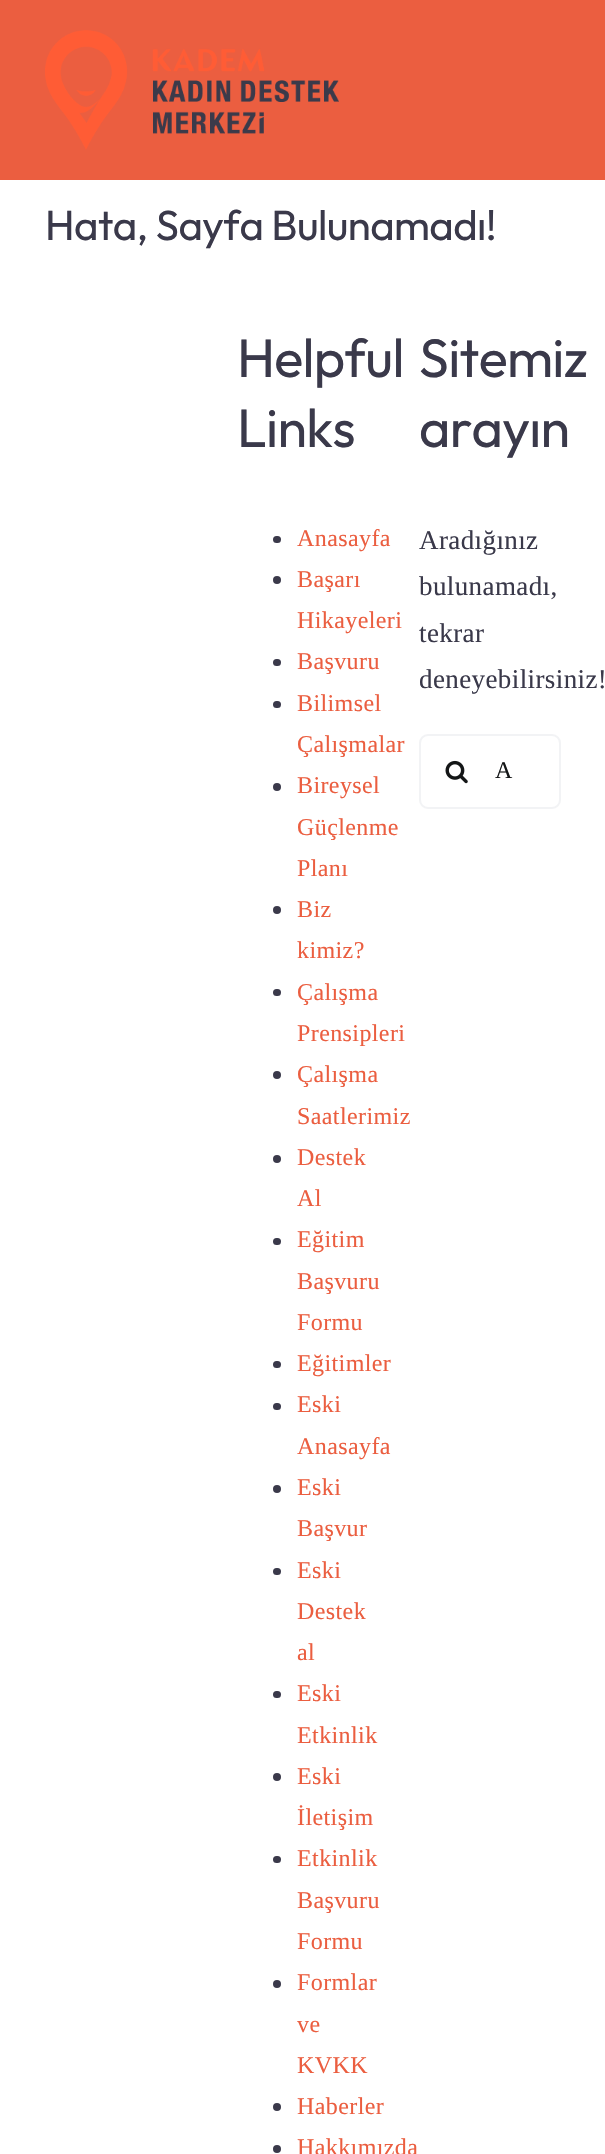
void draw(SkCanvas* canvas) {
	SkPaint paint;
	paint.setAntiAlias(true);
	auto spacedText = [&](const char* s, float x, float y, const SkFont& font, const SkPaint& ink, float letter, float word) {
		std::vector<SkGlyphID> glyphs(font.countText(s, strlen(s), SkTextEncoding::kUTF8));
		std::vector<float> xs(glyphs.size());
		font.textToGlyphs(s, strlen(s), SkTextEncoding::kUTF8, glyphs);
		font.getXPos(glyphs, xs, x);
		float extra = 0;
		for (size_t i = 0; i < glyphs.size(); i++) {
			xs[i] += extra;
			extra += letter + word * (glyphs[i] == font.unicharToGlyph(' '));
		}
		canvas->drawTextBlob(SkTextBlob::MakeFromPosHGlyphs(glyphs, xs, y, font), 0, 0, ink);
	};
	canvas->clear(0xffffffff);
	paint.setColor(0xffeb5e40);
	canvas->drawRect(SkRect::MakeXYWH(0, 0, 605, 180), paint);
	canvas->drawImageRect(SkImages::DeferredFromEncodedData(SkData::MakeFromFileName("img1.png")), SkRect::MakeXYWH(45, 30, 294, 120), SkSamplingOptions());
	SkFont f1(fontMgr->matchFamilyStyle("Outfit", SkFontStyle::Normal()), 42);
	f1.setSubpixel(true);
	paint.setColor(0xff3a394a);
	spacedText("Hata, Sayfa Bulunamadı!", 45, 240, f1, paint, -0.6, 0);
	SkFont f2(fontMgr->matchFamilyStyle("Outfit", SkFontStyle::Normal()), 54);
	f2.setSubpixel(true);
	spacedText("Helpful", 237, 377, f2, paint, -0.75, 0);
	spacedText("Links", 237, 447, f2, paint, -0.75, 0);
	canvas->drawRoundRect(SkRect::MakeXYWH(273, 536, 8, 7), 3.5, 3.5, paint);
	SkFont f3(fontMgr->matchFamilyStyle("Liberation Serif", SkFontStyle::Normal()), 24);
	f3.setSubpixel(true);
	paint.setColor(0xffeb5e40);
	spacedText("Anasayfa", 297, 546, f3, paint, 0.4, 0);
	paint.setColor(0xff3a394a);
	canvas->drawCircle(277, 580, 4, paint);
	paint.setColor(0xffeb5e40);
	spacedText("Başarı", 297, 587, f3, paint, 0.4, 0);
	spacedText("Hikayeleri", 297, 628, f3, paint, 0.4, 0);
	paint.setColor(0xff3a394a);
	canvas->drawRoundRect(SkRect::MakeXYWH(273, 659, 8, 7), 3.5, 3.5, paint);
	paint.setColor(0xffeb5e40);
	spacedText("Başvuru", 297, 669, f3, paint, 0.4, 0);
	paint.setColor(0xff3a394a);
	canvas->drawRoundRect(SkRect::MakeXYWH(273, 701, 8, 7), 3.5, 3.5, paint);
	paint.setColor(0xffeb5e40);
	spacedText("Bilimsel", 297, 711, f3, paint, 0.4, 0);
	spacedText("Çalışmalar", 297, 752, f3, paint, 0.4, 0);
	paint.setColor(0xff3a394a);
	canvas->drawCircle(277, 787, 4, paint);
	paint.setColor(0xffeb5e40);
	spacedText("Bireysel", 297, 793, f3, paint, 0.4, 0);
	spacedText("Güçlenme", 297, 835, f3, paint, 0.4, 0);
	spacedText("Planı", 297, 876, f3, paint, 0.4, 0);
	paint.setColor(0xff3a394a);
	canvas->drawCircle(277, 910, 4, paint);
	paint.setColor(0xffeb5e40);
	spacedText("Biz", 297, 917, f3, paint, 0.4, 0);
	spacedText("kimiz?", 297, 958, f3, paint, 0.4, 0);
	paint.setColor(0xff3a394a);
	canvas->drawRoundRect(SkRect::MakeXYWH(273, 989, 8, 7), 3.5, 3.5, paint);
	paint.setColor(0xffeb5e40);
	spacedText("Çalışma", 297, 1000, f3, paint, 0.4, 0);
	spacedText("Prensipleri", 297, 1041, f3, paint, 0.4, 0);
	paint.setColor(0xff3a394a);
	canvas->drawCircle(277, 1075, 4, paint);
	paint.setColor(0xffeb5e40);
	spacedText("Çalışma", 297, 1082, f3, paint, 0.4, 0);
	spacedText("Saatlerimiz", 297, 1124, f3, paint, 0.4, 0);
	paint.setColor(0xff3a394a);
	canvas->drawCircle(277, 1159, 4, paint);
	paint.setColor(0xffeb5e40);
	spacedText("Destek", 297, 1165, f3, paint, 0.4, 0);
	spacedText("Al", 297, 1206, f3, paint, 0.4, 0);
	paint.setColor(0xff3a394a);
	canvas->drawRoundRect(SkRect::MakeXYWH(273, 1238, 8, 7), 3.5, 3.5, paint);
	paint.setColor(0xffeb5e40);
	spacedText("Eğitim", 297, 1247, f3, paint, 0.4, 0);
	spacedText("Başvuru", 297, 1289, f3, paint, 0.4, 0);
	spacedText("Formu", 297, 1330, f3, paint, 0.4, 0);
	paint.setColor(0xff3a394a);
	canvas->drawRoundRect(SkRect::MakeXYWH(273, 1361, 8, 7), 3.5, 3.5, paint);
	paint.setColor(0xffeb5e40);
	spacedText("Eğitimler", 297, 1371, f3, paint, 0.4, 0);
	paint.setColor(0xff3a394a);
	canvas->drawRoundRect(SkRect::MakeXYWH(273, 1403, 8, 7), 3.5, 3.5, paint);
	paint.setColor(0xffeb5e40);
	spacedText("Eski", 297, 1412, f3, paint, 0.4, 0);
	spacedText("Anasayfa", 297, 1454, f3, paint, 0.4, 0);
	paint.setColor(0xff3a394a);
	canvas->drawCircle(277, 1489, 4, paint);
	paint.setColor(0xffeb5e40);
	spacedText("Eski", 297, 1495, f3, paint, 0.4, 0);
	spacedText("Başvur", 297, 1536, f3, paint, 0.4, 0);
	paint.setColor(0xff3a394a);
	canvas->drawRoundRect(SkRect::MakeXYWH(273, 1568, 8, 7), 3.5, 3.5, paint);
	paint.setColor(0xffeb5e40);
	spacedText("Eski", 297, 1578, f3, paint, 0.4, 0);
	spacedText("Destek", 297, 1619, f3, paint, 0.4, 0);
	spacedText("al", 297, 1660, f3, paint, 0.4, 0);
	paint.setColor(0xff3a394a);
	canvas->drawRoundRect(SkRect::MakeXYWH(273, 1691, 8, 7), 3.5, 3.5, paint);
	paint.setColor(0xffeb5e40);
	spacedText("Eski", 297, 1701, f3, paint, 0.4, 0);
	spacedText("Etkinlik", 297, 1743, f3, paint, 0.4, 0);
	paint.setColor(0xff3a394a);
	canvas->drawCircle(277, 1777, 4, paint);
	paint.setColor(0xffeb5e40);
	spacedText("Eski", 297, 1784, f3, paint, 0.4, 0);
	spacedText("İletişim", 297, 1825, f3, paint, 0.4, 0);
	paint.setColor(0xff3a394a);
	canvas->drawRoundRect(SkRect::MakeXYWH(273, 1856, 8, 7), 3.5, 3.5, paint);
	paint.setColor(0xffeb5e40);
	spacedText("Etkinlik", 297, 1866, f3, paint, 0.4, 0);
	spacedText("Başvuru", 297, 1908, f3, paint, 0.4, 0);
	spacedText("Formu", 297, 1949, f3, paint, 0.4, 0);
	paint.setColor(0xff3a394a);
	canvas->drawCircle(277, 1984, 4, paint);
	paint.setColor(0xffeb5e40);
	spacedText("Formlar", 297, 1990, f3, paint, 0.4, 0);
	spacedText("ve", 297, 2032, f3, paint, 0.4, 0);
	spacedText("KVKK", 297, 2073, f3, paint, 0.4, 0);
	paint.setColor(0xff3a394a);
	canvas->drawCircle(277, 2107, 4, paint);
	paint.setColor(0xffeb5e40);
	spacedText("Haberler", 297, 2114, f3, paint, 0.4, 0);
	paint.setColor(0xff3a394a);
	canvas->drawCircle(277, 2149, 4, paint);
	paint.setColor(0xffeb5e40);
	spacedText("Hakkımızda", 297, 2155, f3, paint, 0.4, 0);
	paint.setColor(0xff3a394a);
	spacedText("Sitemiz", 419, 377, f2, paint, -0.75, 0);
	spacedText("arayın", 419, 447, f2, paint, -0.75, 0);
	SkFont f4(fontMgr->matchFamilyStyle("Liberation Serif", SkFontStyle::Normal()), 27);
	f4.setSubpixel(true);
	spacedText("Aradığınız", 419, 549, f4, paint, 0.4, 0);
	spacedText("bulunamadı,", 419, 595, f4, paint, 0.4, 0);
	spacedText("tekrar", 419, 642, f4, paint, 0.4, 0);
	spacedText("deneyebilirsiniz!", 419, 688, f4, paint, 0.4, 0);
	paint.setStroke(true);
	paint.setStrokeWidth(2);
	paint.setColor(0xfff2f3f5);
	canvas->drawRoundRect(SkRect::MakeXYWH(420, 735, 140, 73), 8, 8, paint);
	canvas->drawImageRect(SkImages::DeferredFromEncodedData(SkData::MakeFromFileName("img2.png")), SkRect::MakeXYWH(445, 760, 23, 24), SkSamplingOptions());
	paint.setStroke(false);
	paint.setColor(0xff141617);
	canvas->drawString("A", 495, 778, f3, paint);
}
